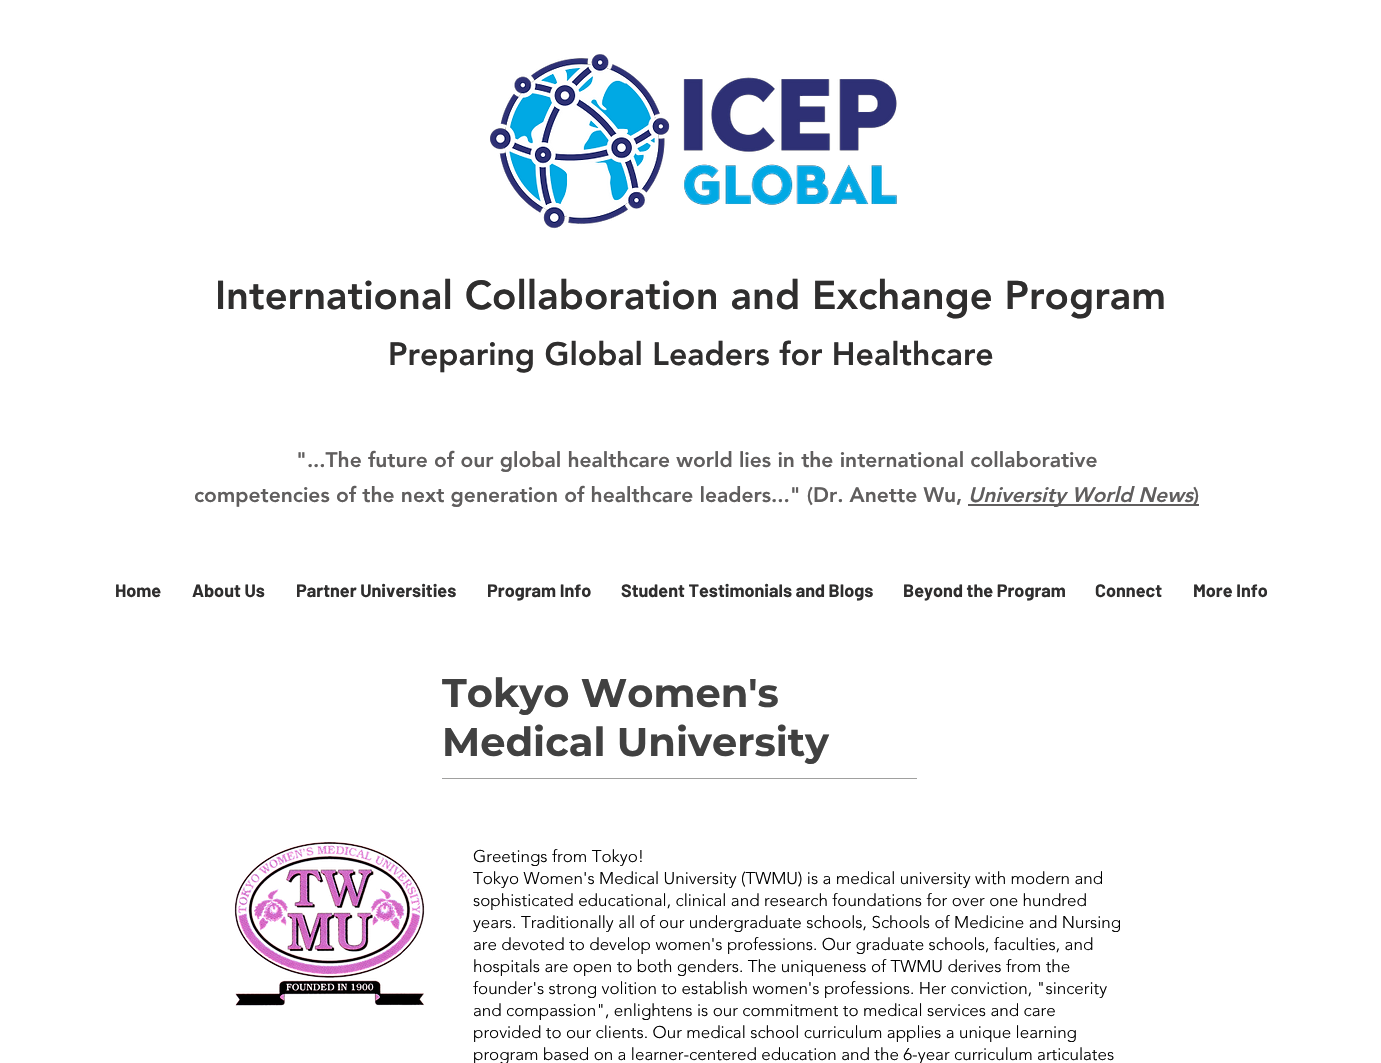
void draw(SkCanvas* canvas) {
	SkPaint paint;
	paint.setAntiAlias(true);
	canvas->clear(0xffffffff);
	canvas->drawImageRect(SkImages::DeferredFromEncodedData(SkData::MakeFromFileName("img1.png")), SkRect::MakeXYWH(490, 54, 407, 176), SkSamplingOptions());
	SkFont f1(fontMgr->matchFamilyStyle("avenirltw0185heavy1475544", SkFontStyle(900, SkFontStyle::kNormal_Width, SkFontStyle::kUpright_Slant)), 40);
	f1.setSubpixel(true);
	paint.setColor(0xff2f2e2e);
	canvas->drawString("International Collaboration and Exchange Program", 215, 309, f1, paint);
	SkFont f2(fontMgr->matchFamilyStyle("avenirltw0185heavy1475544", SkFontStyle(900, SkFontStyle::kNormal_Width, SkFontStyle::kUpright_Slant)), 32);
	f2.setSubpixel(true);
	canvas->drawString("Preparing Global Leaders for Healthcare", 388, 365, f2, paint);
	SkFont f3(fontMgr->matchFamilyStyle("avenirltw0185heavy1475544", SkFontStyle(900, SkFontStyle::kNormal_Width, SkFontStyle::kUpright_Slant)), 21);
	f3.setSubpixel(true);
	paint.setColor(0xff605e5e);
	canvas->drawString("\"...The future of our global healthcare world lies in the international collaborative", 296, 467, f3, paint);
	canvas->drawString("competencies of the next generation of healthcare leaders...\" (Dr. Anette Wu,", 194, 502, f3, paint);
	canvas->drawRect(SkRect::MakeXYWH(968, 504, 225, 2), paint);
	SkFont f4(fontMgr->matchFamilyStyle("avenirltw0185heavy1475544", SkFontStyle(900, SkFontStyle::kNormal_Width, SkFontStyle::kItalic_Slant)), 21);
	f4.setSubpixel(true);
	canvas->drawString("University World News", 968, 502, f4, paint);
	canvas->drawRect(SkRect::MakeXYWH(1193, 504, 6, 2), paint);
	canvas->drawString(")", 1193, 502, f3, paint);
	SkFont f5(fontMgr->matchFamilyStyle("Barlow", SkFontStyle::Bold()), 18);
	f5.setSubpixel(true);
	paint.setColor(0xff2f2e2e);
	canvas->drawString("Home", 115, 597, f5, paint);
	canvas->drawString("About Us", 192, 597, f5, paint);
	canvas->drawString("Partner Universities", 296, 597, f5, paint);
	canvas->drawString("Program Info", 487, 597, f5, paint);
	canvas->drawString("Student Testimonials and Blogs", 621, 597, f5, paint);
	canvas->drawString("Beyond the Program", 903, 597, f5, paint);
	canvas->drawString("Connect", 1095, 597, f5, paint);
	canvas->drawString("More Info", 1193, 597, f5, paint);
	SkFont f6(fontMgr->matchFamilyStyle("Montserrat", SkFontStyle::Bold()), 40);
	f6.setSubpixel(true);
	paint.setColor(0xff414141);
	canvas->drawString("Tokyo Women's", 442, 707, f6, paint);
	canvas->drawString("Medical University", 442, 756, f6, paint);
	paint.setColor(0xffa0a09f);
	canvas->drawRect(SkRect::MakeXYWH(442, 778, 475, 1), paint);
	canvas->drawImageRect(SkImages::DeferredFromEncodedData(SkData::MakeFromFileName("img2.png")), SkRect::MakeXYWH(234, 842, 191, 164), SkSamplingOptions());
	SkFont f7(fontMgr->matchFamilyStyle("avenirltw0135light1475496", SkFontStyle(300, SkFontStyle::kNormal_Width, SkFontStyle::kUpright_Slant)), 17);
	f7.setSubpixel(true);
	paint.setColor(0xff000000);
	canvas->drawString("Greetings from Tokyo!", 473, 862, f7, paint);
	canvas->drawString("Tokyo Women's Medical University (TWMU) is a medical university with modern and", 473, 884, f7, paint);
	canvas->drawString("sophisticated educational, clinical and research foundations for over one hundred", 473, 906, f7, paint);
	canvas->drawString("years. Traditionally all of our undergraduate schools, Schools of Medicine and Nursing", 473, 928, f7, paint);
	canvas->drawString("are devoted to develop women's professions. Our graduate schools, faculties, and", 473, 950, f7, paint);
	canvas->drawString("hospitals are open to both genders. The uniqueness of TWMU derives from the", 473, 972, f7, paint);
	canvas->drawString("founder's strong volition to establish women's professions. Her conviction, \"sincerity", 473, 994, f7, paint);
	canvas->drawString("and compassion\", enlightens is our commitment to medical services and care", 473, 1016, f7, paint);
	canvas->drawString("provided to our clients. Our medical school curriculum applies a unique learning", 473, 1038, f7, paint);
	canvas->drawString("program based on a learner-centered education and the 6-year curriculum articulates", 473, 1060, f7, paint);
}
